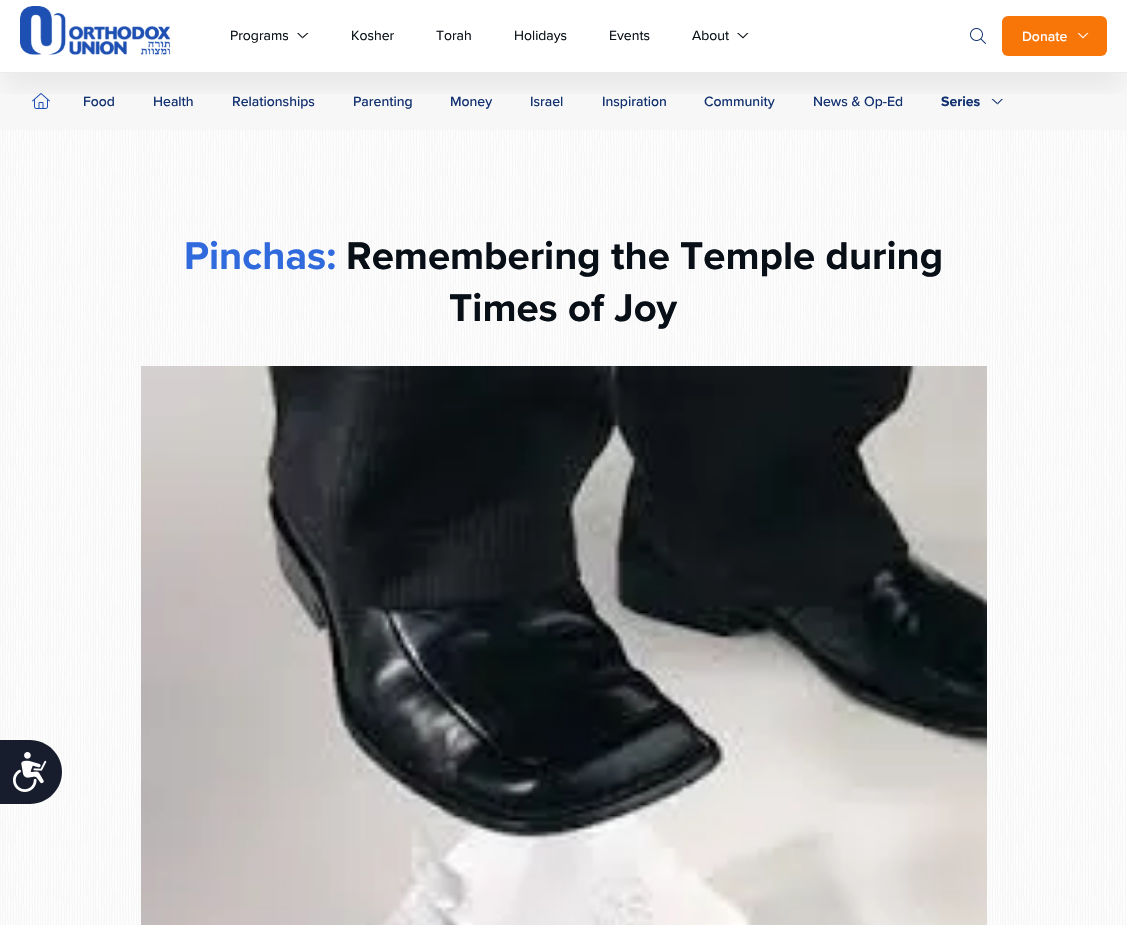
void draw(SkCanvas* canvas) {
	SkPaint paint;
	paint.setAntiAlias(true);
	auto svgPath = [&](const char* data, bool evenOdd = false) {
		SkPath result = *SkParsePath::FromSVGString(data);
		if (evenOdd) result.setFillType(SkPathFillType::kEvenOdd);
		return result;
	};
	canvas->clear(0xffffffff);
	paint.setColor(0x0f101828);
	paint.setMaskFilter(SkMaskFilter::MakeBlur(kNormal_SkBlurStyle, 12));
	canvas->drawRect(SkRect::MakeXYWH(4, 97, 1119, 49), paint);
	paint.setMaskFilter(nullptr);
	paint.setColor(0xfff7f7f7);
	canvas->drawRect(SkRect::MakeXYWH(0, 73, 1127, 57), paint);
	canvas->drawImageRect(SkImages::DeferredFromEncodedData(SkData::MakeFromFileName("img3.png")), SkRect::MakeXYWH(32, 93, 18, 16), SkSamplingOptions());
	paint.setColor(0xff133271);
	canvas->drawPath(svgPath("M1003 99L997.5 104.5V103L1001.5 99Z"), paint);
	canvas->drawPath(svgPath("M997.5 104.5L991.5 99H993L997.5 103Z"), paint);
	canvas->save();
	canvas->clipRect(SkRect::MakeXYWH(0, 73, 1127, 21));
	paint.setColor(0x0f101828);
	paint.setMaskFilter(SkMaskFilter::MakeBlur(kNormal_SkBlurStyle, 12));
	canvas->drawRect(SkRect::MakeXYWH(4, 24, 1119, 65), paint);
	paint.setMaskFilter(nullptr);
	canvas->restore();
	paint.setColor(0xffebebeb);
	canvas->drawRect(SkRect::MakeXYWH(0, 72, 1127, 1), paint);
	canvas->drawImageRect(SkImages::DeferredFromEncodedData(SkData::MakeFromFileName("img1.png")), SkRect::MakeXYWH(20, 6, 150, 49), SkSamplingOptions());
	SkFont f1(fontMgr->matchFamilyStyle("Proxima Nova", SkFontStyle::Normal()), 14);
	f1.setSubpixel(true);
	paint.setColor(0xff080f16);
	canvas->drawString("Programs", 230, 40, f1, paint);
	canvas->drawPath(svgPath("M308.5 33L302.5 38.5V37L307 33Z"), paint);
	canvas->drawPath(svgPath("M302.5 38.5L297 33H298.5L302.5 37Z"), paint);
	canvas->drawString("Kosher", 351, 40, f1, paint);
	canvas->drawString("Torah", 436, 40, f1, paint);
	canvas->drawString("Holidays", 514, 40, f1, paint);
	canvas->drawString("Events", 609, 40, f1, paint);
	canvas->drawString("About", 692, 40, f1, paint);
	canvas->drawPath(svgPath("M748.5 33L743 38.5V37L747 33ZM743 38.5L737 33H738.5L743 37Z"), paint);
	canvas->drawImageRect(SkImages::DeferredFromEncodedData(SkData::MakeFromFileName("img2.png")), SkRect::MakeXYWH(970, 28, 16, 16), SkSamplingOptions());
	paint.setColor(0xfff87507);
	canvas->drawRoundRect(SkRect::MakeXYWH(1002, 16, 105, 40), 6, 6, paint);
	SkFont f2(fontMgr->matchFamilyStyle("Proxima Nova", SkFontStyle(500, SkFontStyle::kNormal_Width, SkFontStyle::kUpright_Slant)), 14);
	f2.setSubpixel(true);
	paint.setColor(0xffffffff);
	canvas->drawString("Donate", 1022, 41, f2, paint);
	canvas->drawPath(svgPath("M1088.5 33L1083 38.5V37L1087 33ZM1083 38.5L1077.5 33H1079L1083 37Z"), paint);
	paint.setColor(0xff133271);
	canvas->drawString("Food", 83, 106, f2, paint);
	canvas->drawString("Health", 153, 106, f2, paint);
	canvas->drawString("Relationships", 232, 106, f2, paint);
	canvas->drawString("Parenting", 353, 106, f2, paint);
	canvas->drawString("Money", 450, 106, f2, paint);
	canvas->drawString("Israel", 530, 106, f2, paint);
	canvas->drawString("Inspiration", 602, 106, f2, paint);
	canvas->drawString("Community", 704, 106, f2, paint);
	canvas->drawString("News & Op-Ed", 813, 106, f2, paint);
	SkFont f3(fontMgr->matchFamilyStyle("Proxima Nova", SkFontStyle::Bold()), 14);
	f3.setSubpixel(true);
	canvas->drawString("Series", 941, 106, f3, paint);
	canvas->drawImageRect(SkImages::DeferredFromEncodedData(SkData::MakeFromFileName("img4.png")), SkRect::MakeXYWH(0, 130, 1126, 795), SkSamplingOptions());
	SkFont f4(fontMgr->matchFamilyStyle("Proxima Nova", SkFontStyle::Bold()), 40);
	f4.setSubpixel(true);
	paint.setColor(0xff316add);
	canvas->drawString("Pinchas:", 184, 269, f4, paint);
	paint.setColor(0xff080f16);
	canvas->drawString("Remembering the Temple during", 346, 269, f4, paint);
	canvas->drawString("Times of Joy", 449, 321, f4, paint);
	canvas->drawImageRect(SkImages::DeferredFromEncodedData(SkData::MakeFromFileName("img5.png")), SkRect::MakeXYWH(141, 366, 846, 559), SkSamplingOptions());
	paint.setColor(0xff171d2d);
	canvas->drawPath(svgPath("M0 740H30C47.5 740 62 754.5 62 772C62 789.5 47.5 804 30 804H0Z"), paint);
	canvas->drawImageRect(SkImages::DeferredFromEncodedData(SkData::MakeFromFileName("img6.png")), SkRect::MakeXYWH(13, 752, 34, 40), SkSamplingOptions());
}
